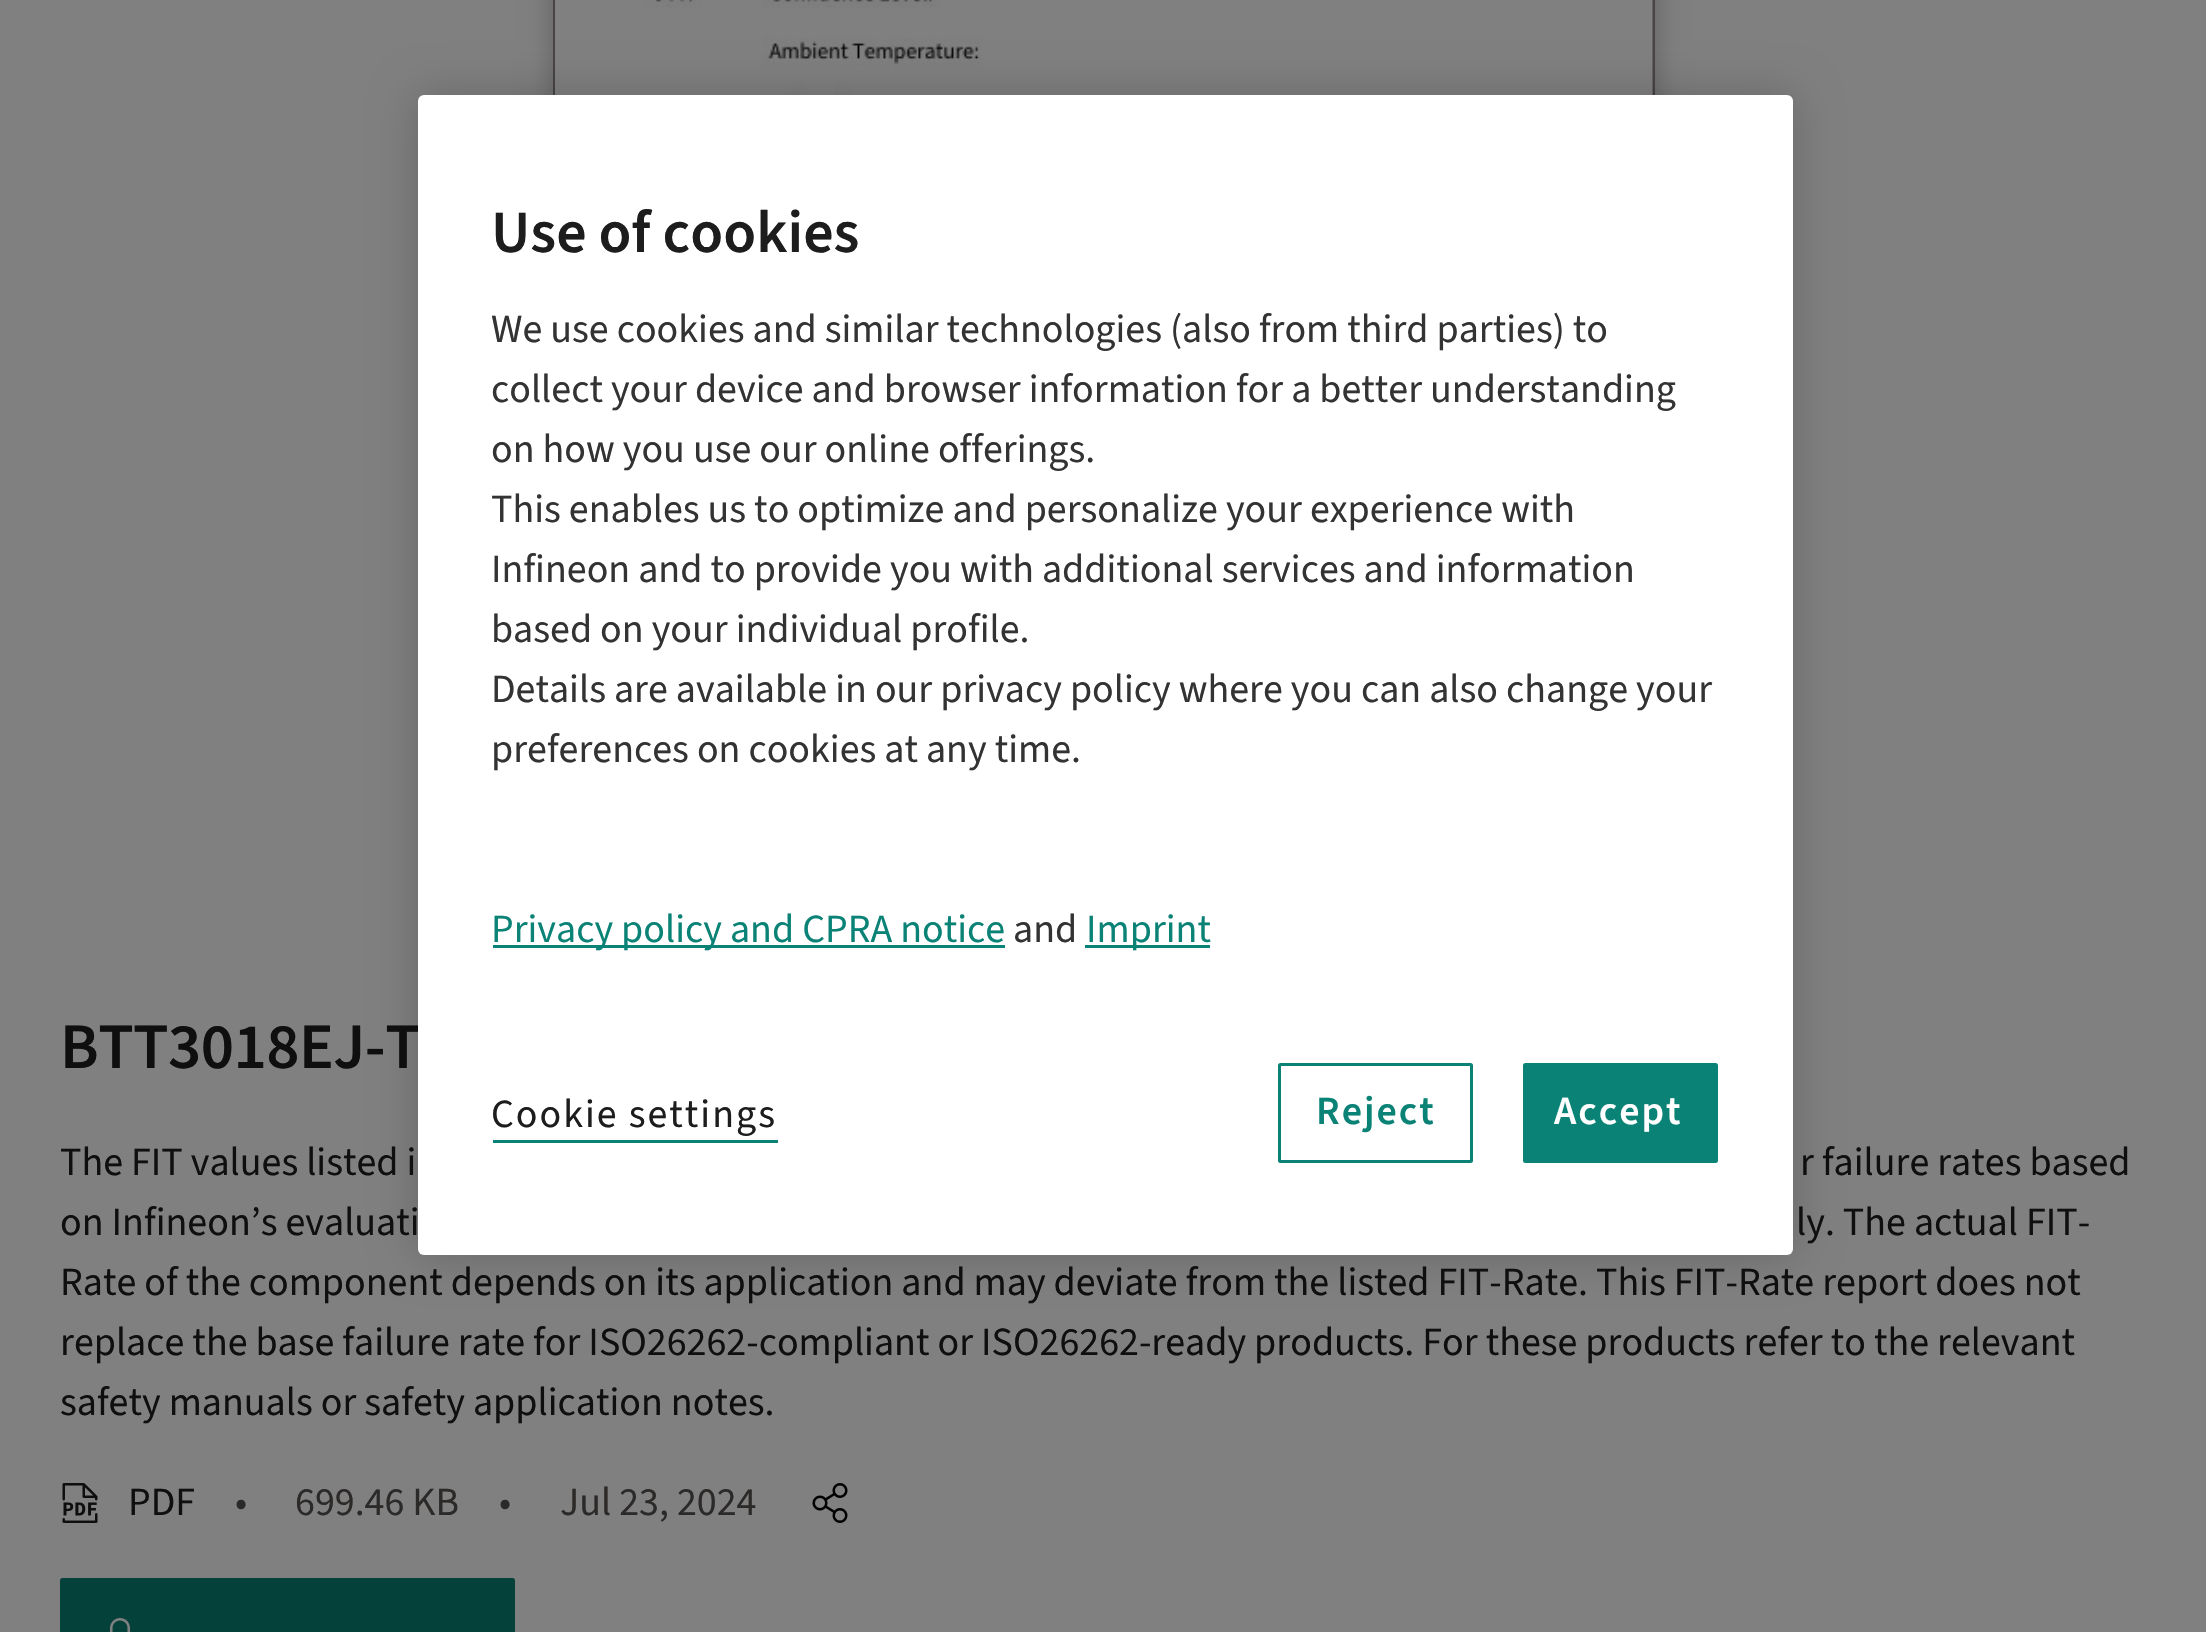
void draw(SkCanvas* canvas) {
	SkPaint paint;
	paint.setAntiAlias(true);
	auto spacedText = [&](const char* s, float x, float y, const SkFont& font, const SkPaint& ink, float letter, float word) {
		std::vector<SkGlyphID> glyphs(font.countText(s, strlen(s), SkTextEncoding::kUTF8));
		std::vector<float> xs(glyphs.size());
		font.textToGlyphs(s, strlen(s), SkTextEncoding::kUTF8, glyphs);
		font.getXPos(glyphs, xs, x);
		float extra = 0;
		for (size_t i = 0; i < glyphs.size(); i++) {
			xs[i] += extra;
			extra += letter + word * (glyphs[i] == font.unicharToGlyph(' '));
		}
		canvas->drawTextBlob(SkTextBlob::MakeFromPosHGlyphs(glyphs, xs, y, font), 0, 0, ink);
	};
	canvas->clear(0xff808080);
	paint.setColor(0x40000000);
	paint.setMaskFilter(SkMaskFilter::MakeBlur(kNormal_SkBlurStyle, 12.5));
	canvas->drawRect(SkRect::MakeXYWH(553, -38, 1102, 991), paint);
	paint.setMaskFilter(nullptr);
	paint.setStroke(true);
	paint.setStrokeWidth(3);
	paint.setColor(0xff474443);
	canvas->drawRect(SkRect::MakeXYWH(554.5, -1.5, 1099, 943), paint);
	canvas->drawImageRect(SkImages::DeferredFromEncodedData(SkData::MakeFromFileName("img1.png")), SkRect::MakeXYWH(555, 0, 1098, 95), SkSamplingOptions());
	paint.setStroke(false);
	paint.setColor(0x33000000);
	paint.setMaskFilter(SkMaskFilter::MakeBlur(kNormal_SkBlurStyle, 22.5));
	canvas->drawRoundRect(SkRect::MakeXYWH(418, 95, 1375, 1160), 6, 6, paint);
	paint.setMaskFilter(nullptr);
	SkFont f1(fontMgr->matchFamilyStyle("Source Sans 3", SkFontStyle(600, SkFontStyle::kNormal_Width, SkFontStyle::kUpright_Slant)), 65);
	f1.setSubpixel(true);
	paint.setColor(0xff0f0f0f);
	spacedText("BTT3018EJ-T", 60, 1068, f1, paint, -0.6, 0);
	paint.setColor(0xffffffff);
	canvas->drawRoundRect(SkRect::MakeXYWH(418, 95, 1375, 1160), 6, 6, paint);
	SkFont f2(fontMgr->matchFamilyStyle("Source Sans 3", SkFontStyle(600, SkFontStyle::kNormal_Width, SkFontStyle::kUpright_Slant)), 60);
	f2.setSubpixel(true);
	paint.setColor(0xff1d1d1d);
	canvas->drawString("Use of cookies", 491, 252, f2, paint);
	SkFont f3(fontMgr->matchFamilyStyle("Source Sans 3", SkFontStyle::Normal()), 40);
	f3.setSubpixel(true);
	paint.setColor(0xff333333);
	canvas->drawString("We use cookies and similar technologies (also from third parties) to", 491, 342, f3, paint);
	canvas->drawString("collect your device and browser information for a better understanding", 491, 402, f3, paint);
	canvas->drawString("on how you use our online offerings.", 491, 462, f3, paint);
	canvas->drawString("This enables us to optimize and personalize your experience with", 491, 522, f3, paint);
	canvas->drawString("Infineon and to provide you with additional services and information", 491, 582, f3, paint);
	canvas->drawString("based on your individual profile.", 491, 642, f3, paint);
	canvas->drawString("Details are available in our privacy policy where you can also change your", 491, 702, f3, paint);
	canvas->drawString("preferences on cookies at any time.", 491, 762, f3, paint);
	paint.setColor(0xff0a8276);
	canvas->drawRect(SkRect::MakeXYWH(493, 945, 512, 3), paint);
	canvas->drawString("Privacy policy and CPRA notice", 491, 942, f3, paint);
	paint.setColor(0xff333333);
	canvas->drawString("and", 1013, 942, f3, paint);
	paint.setColor(0xff0a8276);
	canvas->drawRect(SkRect::MakeXYWH(1085, 945, 125, 3), paint);
	canvas->drawString("Imprint", 1086, 942, f3, paint);
	paint.setColor(0xff1d1d1d);
	spacedText("Cookie settings", 491, 1127, f3, paint, 2, 0);
	paint.setColor(0xff0a8276);
	canvas->drawRect(SkRect::MakeXYWH(493, 1140, 285, 3), paint);
	paint.setStroke(true);
	canvas->drawRoundRect(SkRect::MakeXYWH(1279.5, 1064.5, 192, 97), 1, 1, paint);
	SkFont f4(fontMgr->matchFamilyStyle("Source Sans 3", SkFontStyle(600, SkFontStyle::kNormal_Width, SkFontStyle::kUpright_Slant)), 40);
	f4.setSubpixel(true);
	paint.setStroke(false);
	spacedText("Reject", 1316, 1124, f4, paint, 2, 0);
	canvas->drawRoundRect(SkRect::MakeXYWH(1524.5, 1064.5, 192, 97), 1, 1, paint);
	paint.setStroke(true);
	canvas->drawRoundRect(SkRect::MakeXYWH(1524.5, 1064.5, 192, 97), 1, 1, paint);
	paint.setStroke(false);
	paint.setColor(0xffffffff);
	spacedText("Accept", 1554, 1124, f4, paint, 2, 0);
	paint.setColor(0xff0f0f0f);
	canvas->drawString("The FIT values listed i", 60, 1175, f3, paint);
	canvas->drawString("r failure rates based", 1800, 1175, f3, paint);
	canvas->drawString("on Infineon’s evaluati", 60, 1235, f3, paint);
	canvas->drawString("ly. The actual FIT-", 1796, 1235, f3, paint);
	canvas->drawString("Rate of the component depends on its application and may deviate from the listed FIT-Rate. This FIT-Rate report does not", 60, 1295, f3, paint);
	canvas->drawString("replace the base failure rate for ISO26262-compliant or ISO26262-ready products. For these products refer to the relevant", 60, 1355, f3, paint);
	canvas->drawString("safety manuals or safety application notes.", 60, 1415, f3, paint);
	canvas->drawImageRect(SkImages::DeferredFromEncodedData(SkData::MakeFromFileName("img2.png")), SkRect::MakeXYWH(62, 1483, 36, 40), SkSamplingOptions());
	canvas->drawString("PDF", 128, 1515, f3, paint);
	paint.setColor(0xff2c2a29);
	canvas->drawString("•", 235, 1515, f3, paint);
	canvas->drawString("699.46 KB", 295, 1515, f3, paint);
	canvas->drawString("•", 499, 1515, f3, paint);
	canvas->drawString("Jul 23, 2024", 560, 1515, f3, paint);
	canvas->drawImageRect(SkImages::DeferredFromEncodedData(SkData::MakeFromFileName("img3.png")), SkRect::MakeXYWH(812, 1483, 36, 40), SkSamplingOptions());
	paint.setColor(0xff05413b);
	canvas->drawRoundRect(SkRect::MakeXYWH(60, 1578, 455, 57), 2.5, 2.5, paint);
	canvas->drawImageRect(SkImages::DeferredFromEncodedData(SkData::MakeFromFileName("img4.png")), SkRect::MakeXYWH(110, 1618, 20, 14), SkSamplingOptions());
}
